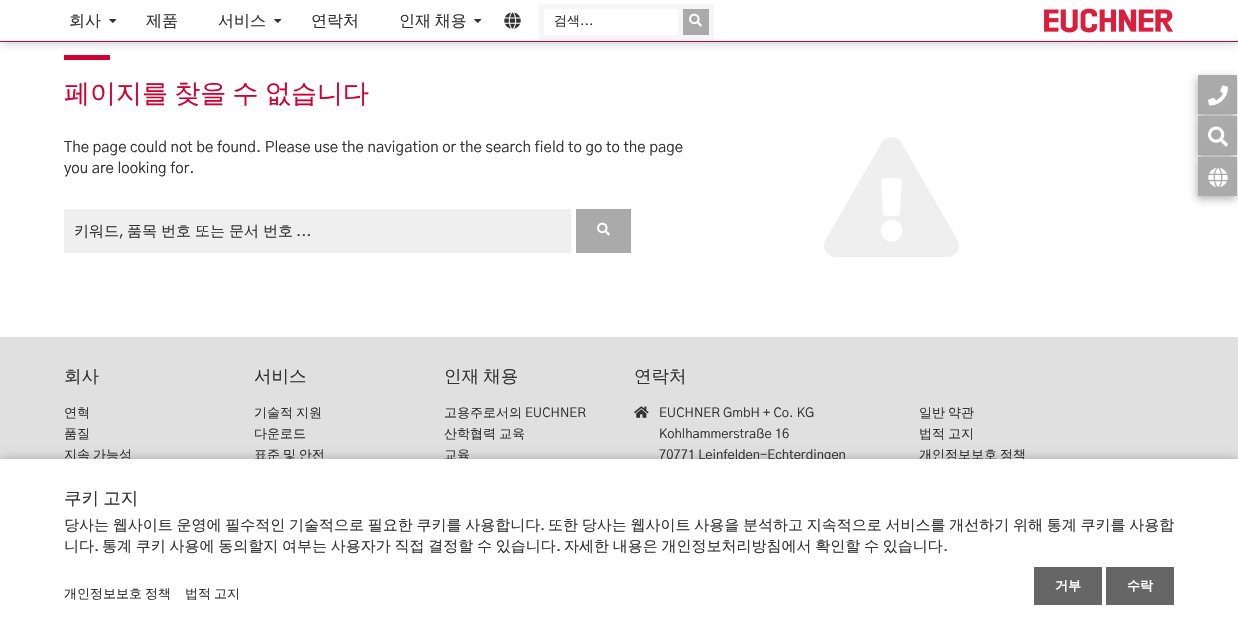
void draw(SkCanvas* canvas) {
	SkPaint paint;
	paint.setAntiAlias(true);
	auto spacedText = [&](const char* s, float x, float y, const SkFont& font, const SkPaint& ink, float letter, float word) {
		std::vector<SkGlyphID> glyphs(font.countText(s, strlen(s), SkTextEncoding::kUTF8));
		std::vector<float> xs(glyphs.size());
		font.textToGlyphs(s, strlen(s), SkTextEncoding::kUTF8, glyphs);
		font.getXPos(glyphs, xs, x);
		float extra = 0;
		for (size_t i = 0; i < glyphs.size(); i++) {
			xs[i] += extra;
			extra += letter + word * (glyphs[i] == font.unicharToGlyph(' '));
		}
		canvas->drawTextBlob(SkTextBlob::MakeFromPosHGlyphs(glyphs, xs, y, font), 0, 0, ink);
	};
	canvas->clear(0xffffffff);
	paint.setColor(0xffd30132);
	canvas->drawRect(SkRect::MakeXYWH(64, 55, 46, 5), paint);
	paint.setColor(0x40000000);
	paint.setMaskFilter(SkMaskFilter::MakeBlur(kNormal_SkBlurStyle, 5));
	canvas->drawRect(SkRect::MakeXYWH(0, 0, 1238, 42), paint);
	paint.setMaskFilter(nullptr);
	paint.setColor(0xffffffff);
	canvas->drawRect(SkRect::MakeXYWH(0, 0, 1238, 41), paint);
	paint.setColor(0xffd30132);
	canvas->drawRect(SkRect::MakeXYWH(0, 41, 1238, 1), paint);
	SkFont f1(fontMgr->matchFamilyStyle("WenQuanYi Zen Hei", SkFontStyle(500, SkFontStyle::kNormal_Width, SkFontStyle::kUpright_Slant)), 16);
	f1.setSubpixel(true);
	paint.setColor(0xff333333);
	canvas->drawString("회사", 69, 26, f1, paint);
	canvas->drawImageRect(SkImages::DeferredFromEncodedData(SkData::MakeFromFileName("img1.png")), SkRect::MakeXYWH(109, 19, 8, 4), SkSamplingOptions());
	canvas->drawString("제품", 146, 26, f1, paint);
	canvas->drawString("서비스", 218, 26, f1, paint);
	canvas->drawImageRect(SkImages::DeferredFromEncodedData(SkData::MakeFromFileName("img1.png")), SkRect::MakeXYWH(274, 19, 8, 4), SkSamplingOptions());
	canvas->drawString("연락처", 311, 26, f1, paint);
	spacedText("인재 채용", 399, 26, f1, paint, 0, -1);
	canvas->drawImageRect(SkImages::DeferredFromEncodedData(SkData::MakeFromFileName("img1.png")), SkRect::MakeXYWH(474, 19, 8, 4), SkSamplingOptions());
	canvas->drawImageRect(SkImages::DeferredFromEncodedData(SkData::MakeFromFileName("img2.png")), SkRect::MakeXYWH(504, 12, 17, 17), SkSamplingOptions());
	paint.setColor(0xfff6f6f6);
	canvas->drawRect(SkRect::MakeXYWH(539, 4, 175, 36), paint);
	paint.setColor(0xffffffff);
	canvas->drawRect(SkRect::MakeXYWH(544, 9, 134, 26), paint);
	SkFont f2(fontMgr->matchFamilyStyle("WenQuanYi Zen Hei", SkFontStyle(500, SkFontStyle::kNormal_Width, SkFontStyle::kUpright_Slant)), 13);
	f2.setSubpixel(true);
	paint.setColor(0xff333333);
	canvas->drawString("검색", 554, 25, f2, paint);
	SkFont f3(fontMgr->matchFamilyStyle("Gothic A1", SkFontStyle::Normal()), 13);
	f3.setSubpixel(true);
	canvas->drawString("...", 580, 25, f3, paint);
	paint.setColor(0xffaaaaaa);
	canvas->drawRect(SkRect::MakeXYWH(683, 9, 26, 26), paint);
	canvas->drawImageRect(SkImages::DeferredFromEncodedData(SkData::MakeFromFileName("img3.png")), SkRect::MakeXYWH(689, 13, 13, 14), SkSamplingOptions());
	canvas->drawImageRect(SkImages::DeferredFromEncodedData(SkData::MakeFromFileName("img4.png")), SkRect::MakeXYWH(1044, 8, 129, 25), SkSamplingOptions());
	SkFont f4(fontMgr->matchFamilyStyle("WenQuanYi Zen Hei", SkFontStyle(500, SkFontStyle::kNormal_Width, SkFontStyle::kUpright_Slant)), 26);
	f4.setSubpixel(true);
	paint.setColor(0xffd30132);
	spacedText("페이지를 찾을 수 없습니다", 64, 102, f4, paint, 0, -1.5);
	SkFont f5(fontMgr->matchFamilyStyle("Gothic A1", SkFontStyle::Normal()), 15);
	f5.setSubpixel(true);
	paint.setColor(0xff333333);
	canvas->drawString("The page could not be found. Please use the navigation or the search field to go to the page", 64, 152, f5, paint);
	canvas->drawString("you are looking for.", 64, 173, f5, paint);
	paint.setColor(0xffefefef);
	canvas->drawRect(SkRect::MakeXYWH(64, 209, 507, 44), paint);
	SkFont f6(fontMgr->matchFamilyStyle("WenQuanYi Zen Hei", SkFontStyle(500, SkFontStyle::kNormal_Width, SkFontStyle::kUpright_Slant)), 15);
	f6.setSubpixel(true);
	paint.setColor(0xff333333);
	canvas->drawString("키워드", 74, 236, f6, paint);
	canvas->drawString(",", 119, 236, f5, paint);
	spacedText("품목 번호 또는 문서 번호", 127, 236, f6, paint, 0, -0.5);
	canvas->drawString("...", 296, 236, f5, paint);
	paint.setColor(0xffaaaaaa);
	canvas->drawRect(SkRect::MakeXYWH(576, 209, 55, 44), paint);
	canvas->drawImageRect(SkImages::DeferredFromEncodedData(SkData::MakeFromFileName("img3.png")), SkRect::MakeXYWH(597, 222, 13, 14), SkSamplingOptions());
	canvas->drawImageRect(SkImages::DeferredFromEncodedData(SkData::MakeFromFileName("img5.png")), SkRect::MakeXYWH(824, 137, 135, 120), SkSamplingOptions());
	paint.setColor(0x4d000000);
	paint.setMaskFilter(SkMaskFilter::MakeBlur(kNormal_SkBlurStyle, 4));
	canvas->drawRect(SkRect::MakeXYWH(1197, 78, 39, 39), paint);
	paint.setMaskFilter(nullptr);
	paint.setColor(0xffaaaaaa);
	canvas->drawRect(SkRect::MakeXYWH(1198, 75, 39, 39), paint);
	canvas->drawImageRect(SkImages::DeferredFromEncodedData(SkData::MakeFromFileName("img6.png")), SkRect::MakeXYWH(1208, 85, 20, 21), SkSamplingOptions());
	paint.setColor(0x4d000000);
	paint.setMaskFilter(SkMaskFilter::MakeBlur(kNormal_SkBlurStyle, 4));
	canvas->drawRect(SkRect::MakeXYWH(1197, 119, 39, 39), paint);
	paint.setMaskFilter(nullptr);
	paint.setColor(0xffaaaaaa);
	canvas->drawRect(SkRect::MakeXYWH(1198, 116, 39, 39), paint);
	canvas->drawImageRect(SkImages::DeferredFromEncodedData(SkData::MakeFromFileName("img7.png")), SkRect::MakeXYWH(1208, 126, 20, 21), SkSamplingOptions());
	paint.setColor(0x4d000000);
	paint.setMaskFilter(SkMaskFilter::MakeBlur(kNormal_SkBlurStyle, 4));
	canvas->drawRect(SkRect::MakeXYWH(1197, 160, 39, 39), paint);
	paint.setMaskFilter(nullptr);
	paint.setColor(0xffaaaaaa);
	canvas->drawRect(SkRect::MakeXYWH(1198, 157, 39, 39), paint);
	canvas->drawImageRect(SkImages::DeferredFromEncodedData(SkData::MakeFromFileName("img8.png")), SkRect::MakeXYWH(1208, 168, 20, 19), SkSamplingOptions());
	paint.setColor(0xffe0e0e0);
	canvas->drawRect(SkRect::MakeXYWH(0, 337, 1238, 122), paint);
	SkFont f7(fontMgr->matchFamilyStyle("WenQuanYi Zen Hei", SkFontStyle(500, SkFontStyle::kNormal_Width, SkFontStyle::kUpright_Slant)), 17.5);
	f7.setSubpixel(true);
	paint.setColor(0xff333333);
	canvas->drawString("회사", 64, 382, f7, paint);
	canvas->drawString("연혁", 64, 417, f2, paint);
	canvas->drawString("품질", 64, 438, f2, paint);
	spacedText("지속 가능성", 64, 459, f2, paint, 0, -1);
	canvas->drawString("서비스", 254, 382, f7, paint);
	spacedText("기술적 지원", 254, 417, f2, paint, 0, -1);
	canvas->drawString("다운로드", 254, 438, f2, paint);
	spacedText("표준 및 안전", 254, 459, f2, paint, 0, -1);
	spacedText("인재 채용", 444, 382, f7, paint, 0, -1);
	canvas->drawString("고용주로서의", 444, 417, f2, paint);
	canvas->drawString("EUCHNER", 525, 417, f3, paint);
	spacedText("산학협력 교육", 444, 438, f2, paint, 0, -1);
	canvas->drawString("교육", 444, 459, f2, paint);
	canvas->drawString("연락처", 634, 382, f7, paint);
	canvas->drawImageRect(SkImages::DeferredFromEncodedData(SkData::MakeFromFileName("img9.png")), SkRect::MakeXYWH(634, 406, 15, 12), SkSamplingOptions());
	canvas->drawString("EUCHNER GmbH + Co. KG", 659, 417, f3, paint);
	canvas->drawString("Kohlhammerstraße 16", 659, 438, f3, paint);
	canvas->drawString("70771 Leinfelden-Echterdingen", 659, 459, f3, paint);
	spacedText("일반 약관", 919, 417, f2, paint, 0, -1);
	spacedText("법적 고지", 919, 438, f2, paint, 0, -1);
	spacedText("개인정보보호 정책", 919, 459, f2, paint, 0, -1);
	paint.setColor(0x40000000);
	paint.setMaskFilter(SkMaskFilter::MakeBlur(kNormal_SkBlurStyle, 5));
	canvas->drawRect(SkRect::MakeXYWH(0, 459, 1238, 176), paint);
	paint.setMaskFilter(nullptr);
	paint.setColor(0xffffffff);
	canvas->drawRect(SkRect::MakeXYWH(0, 459, 1238, 176), paint);
	paint.setColor(0xff333333);
	spacedText("쿠키 고지", 64, 504, f7, paint, 0, -1);
	spacedText("당사는 웹사이트 운영에 필수적인 기술적으로 필요한 쿠키를 사용합니다", 64, 530, f6, paint, 0, -0.75);
	canvas->drawString(".", 540, 530, f5, paint);
	spacedText("또한 당사는 웹사이트 사용을 분석하고 지속적으로 서비스를 개선하기 위해 통계 쿠키를 사용합", 548, 530, f6, paint, 0, -0.75);
	canvas->drawString("니다", 64, 551, f6, paint);
	canvas->drawString(".", 94, 551, f5, paint);
	spacedText("통계 쿠키 사용에 동의할지 여부는 사용자가 직접 결정할 수 있습니다", 102, 551, f6, paint, 0, -0.75);
	canvas->drawString(".", 556, 551, f5, paint);
	spacedText("자세한 내용은 개인정보처리방침에서 확인할 수 있습니다", 564, 551, f6, paint, 0, -0.75);
	canvas->drawString(".", 943, 551, f5, paint);
	paint.setColor(0xff666666);
	canvas->drawRect(SkRect::MakeXYWH(1034, 567, 68, 38), paint);
	SkFont f8(fontMgr->matchFamilyStyle("WenQuanYi Zen Hei", SkFontStyle::Bold()), 13);
	f8.setSubpixel(true);
	paint.setColor(0xffffffff);
	canvas->drawString("거부", 1055, 590, f8, paint);
	paint.setColor(0xff666666);
	canvas->drawRect(SkRect::MakeXYWH(1106, 567, 68, 38), paint);
	paint.setColor(0xffffffff);
	canvas->drawString("수락", 1127, 590, f8, paint);
	paint.setColor(0xff333333);
	spacedText("개인정보보호 정책", 64, 598, f2, paint, 0, -1);
	spacedText("법적 고지", 185, 598, f2, paint, 0, -1);
}
